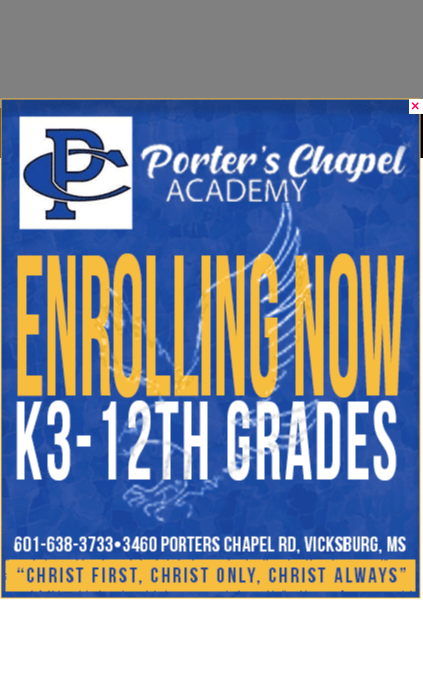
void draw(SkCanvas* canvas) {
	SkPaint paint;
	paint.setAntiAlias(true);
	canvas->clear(0xff808080);
	paint.setColor(0xff000000);
	canvas->drawRect(SkRect::MakeXYWH(0, 108, 423, 50), paint);
	paint.setColor(0xffffffff);
	canvas->drawRect(SkRect::MakeXYWH(0, 158, 423, 541), paint);
	canvas->drawImageRect(SkImages::DeferredFromEncodedData(SkData::MakeFromFileName("img1.png")), SkRect::MakeXYWH(0, 98, 421, 501), SkSamplingOptions());
	canvas->drawRect(SkRect::MakeXYWH(409, 99, 14, 15), paint);
	SkFont f1(fontMgr->matchFamilyStyle("Roboto", SkFontStyle::Normal()), 16);
	f1.setSubpixel(true);
	paint.setColor(0xffff005b);
	canvas->drawString("×", 411, 111, f1, paint);
}
